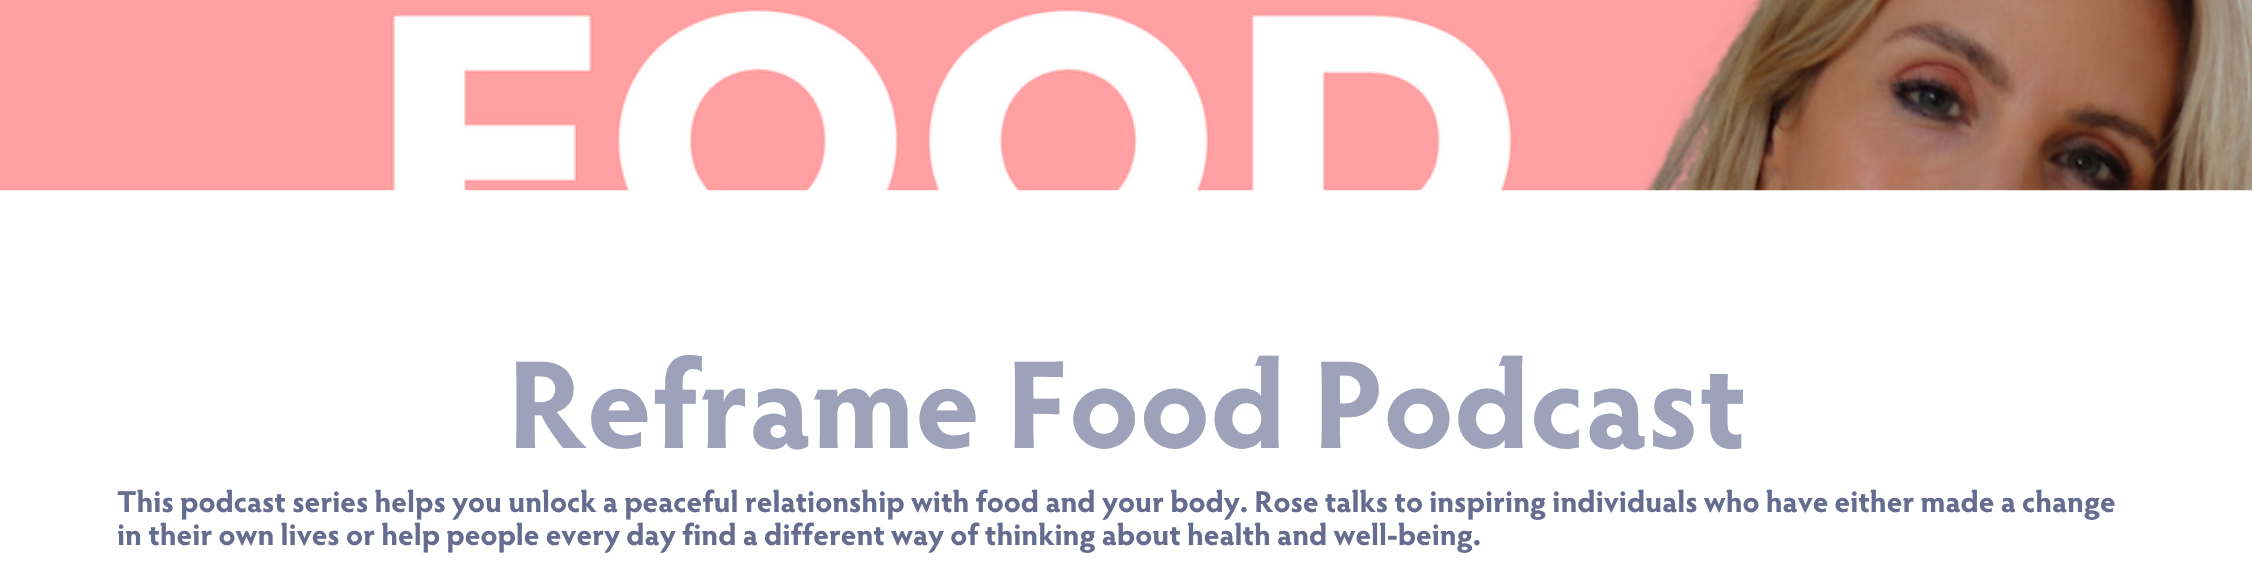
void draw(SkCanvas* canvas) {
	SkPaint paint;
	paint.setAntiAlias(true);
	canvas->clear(0xffffffff);
	canvas->drawImageRect(SkImages::DeferredFromEncodedData(SkData::MakeFromFileName("img1.png")), SkRect::MakeXYWH(0, 0, 2252, 191), SkSamplingOptions());
	SkFont f1(fontMgr->matchFamilyStyle("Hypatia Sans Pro", SkFontStyle::Bold()), 125.75);
	f1.setSubpixel(true);
	paint.setColor(0xff9da1ba);
	canvas->drawString("Reframe Food Podcast", 507, 448, f1, paint);
	SkFont f2(fontMgr->matchFamilyStyle("Hypatia Sans Pro", SkFontStyle::Bold()), 30.27);
	f2.setSubpixel(true);
	paint.setColor(0xff666c8f);
	canvas->drawString("This podcast series helps you unlock a peaceful relationship with food and your body. Rose talks to inspiring individuals who have either made a change", 117, 512, f2, paint);
	canvas->drawString("in their own lives or help people every day find a different way of thinking about health and well-being.", 117, 545, f2, paint);
}
